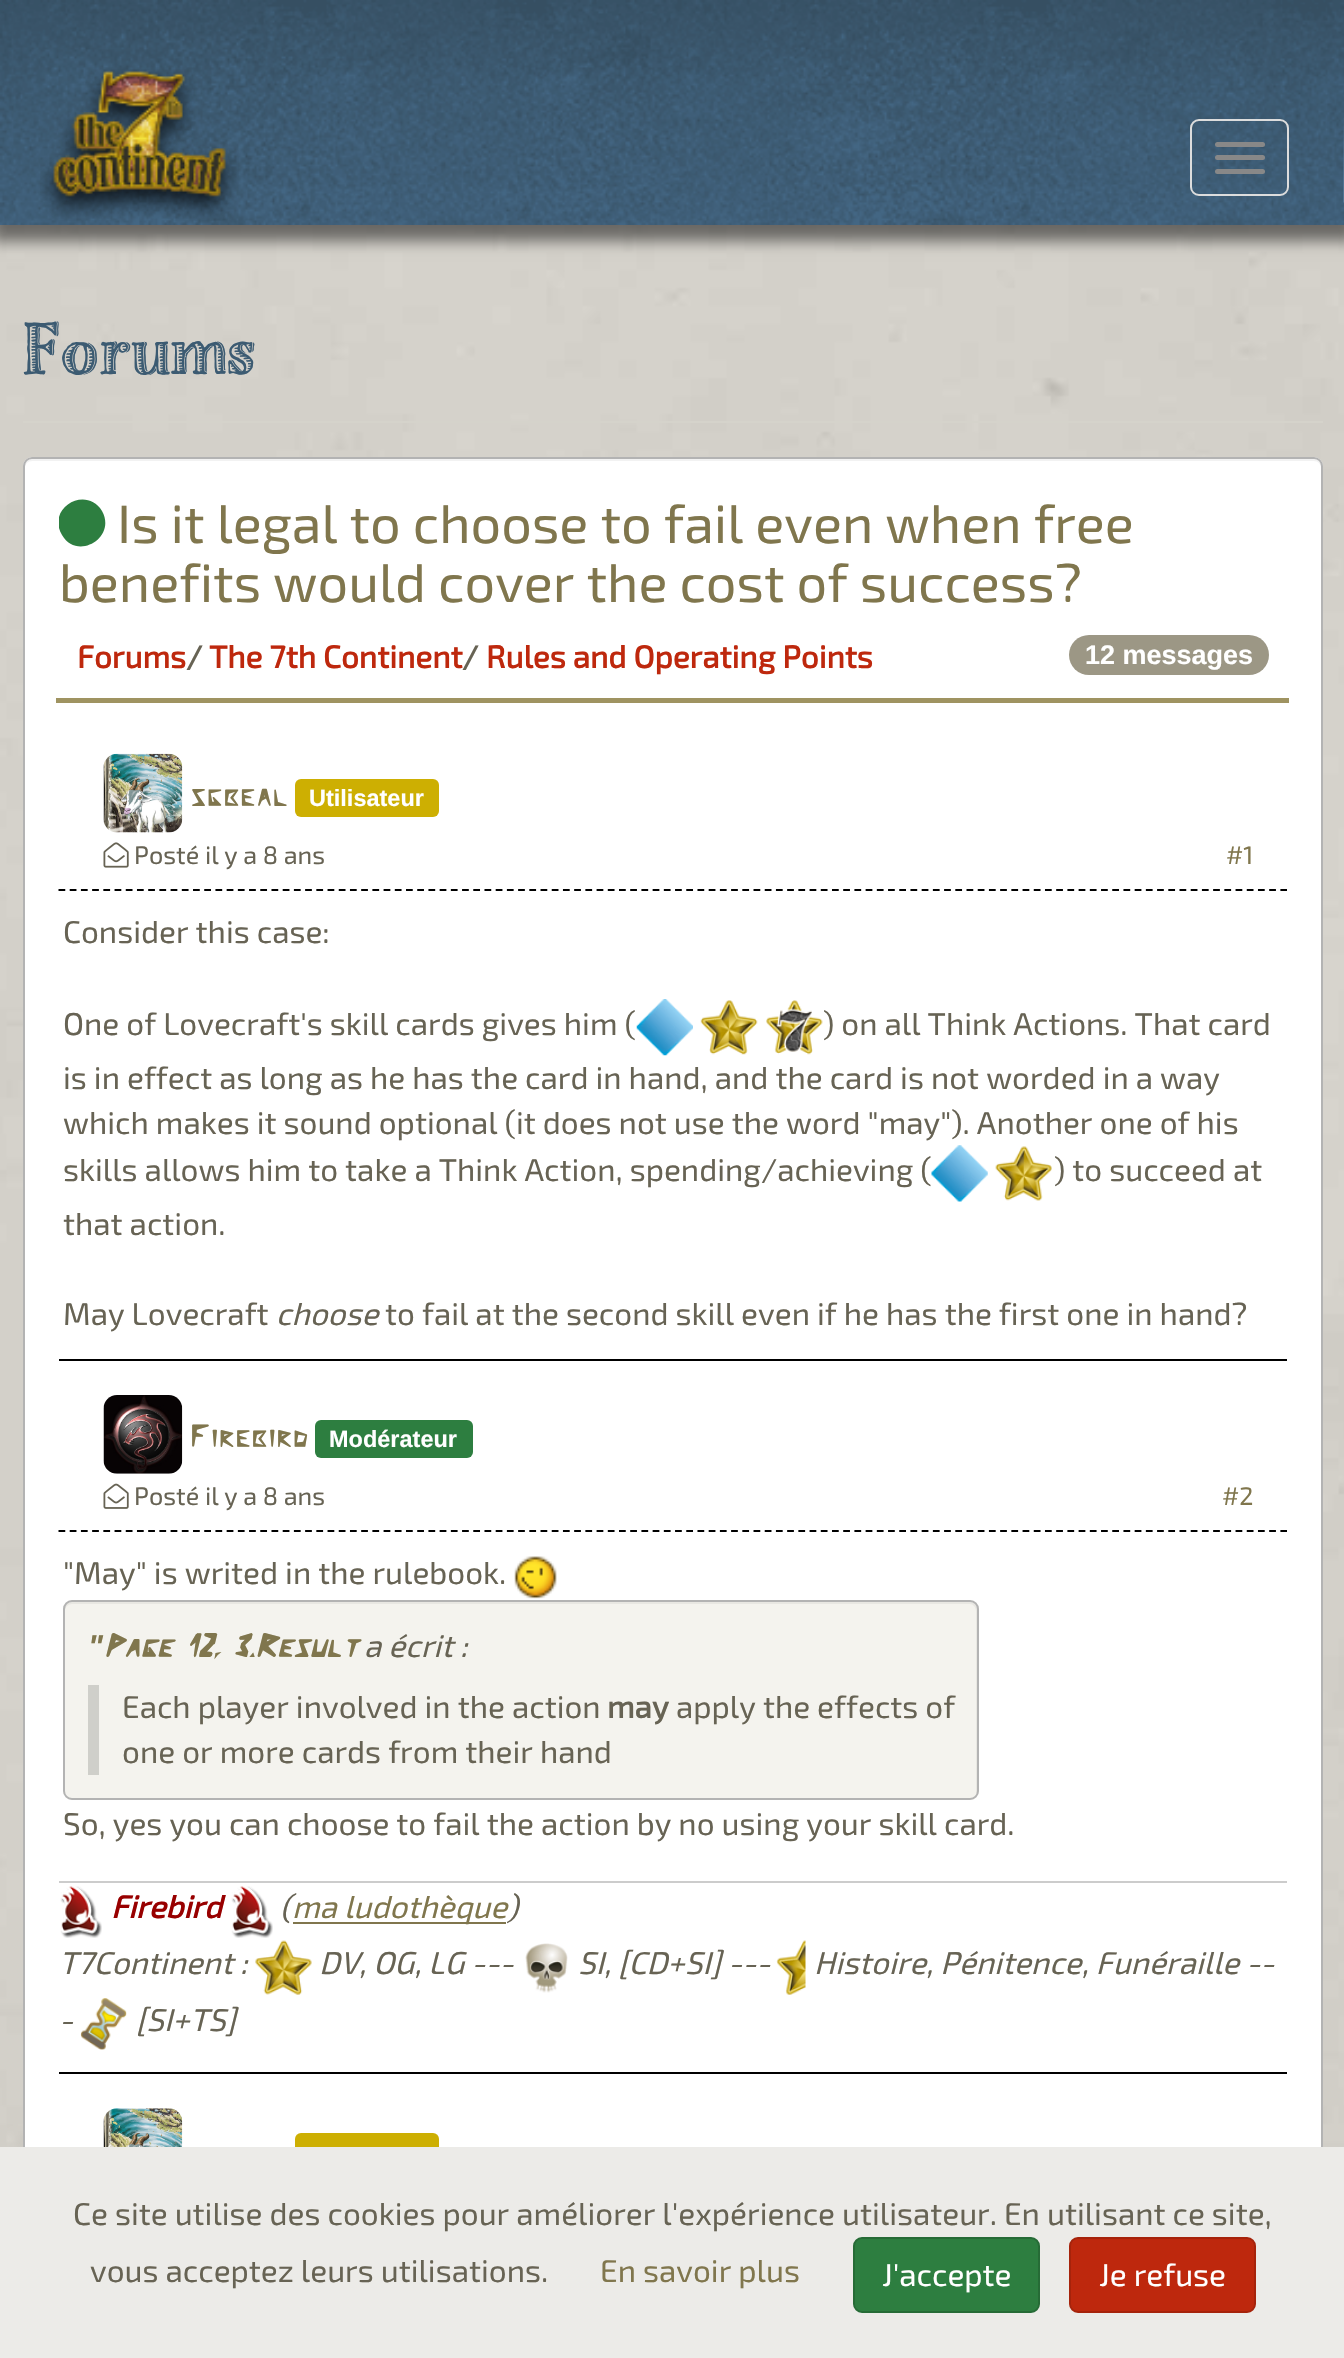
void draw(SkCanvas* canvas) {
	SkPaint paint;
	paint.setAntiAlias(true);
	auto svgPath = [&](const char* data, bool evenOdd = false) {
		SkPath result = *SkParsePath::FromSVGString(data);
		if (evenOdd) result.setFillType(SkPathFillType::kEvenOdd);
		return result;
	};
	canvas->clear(0xffffffff);
	canvas->drawImageRect(SkImages::DeferredFromEncodedData(SkData::MakeFromFileName("img1.png")), SkRect::MakeXYWH(0, 225, 1344, 1922), SkSamplingOptions());
	paint.setColor(0x80000000);
	paint.setMaskFilter(SkMaskFilter::MakeBlur(kNormal_SkBlurStyle, 7));
	canvas->drawRect(SkRect::MakeXYWH(-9, -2, 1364, 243), paint);
	paint.setMaskFilter(nullptr);
	canvas->drawImageRect(SkImages::DeferredFromEncodedData(SkData::MakeFromFileName("img2.png")), SkRect::MakeXYWH(0, 0, 1344, 225), SkSamplingOptions());
	canvas->drawImageRect(SkImages::DeferredFromEncodedData(SkData::MakeFromFileName("img3.png")), SkRect::MakeXYWH(1343, 118, 1, 85), SkSamplingOptions());
	canvas->drawImageRect(SkImages::DeferredFromEncodedData(SkData::MakeFromFileName("img4.png")), SkRect::MakeXYWH(40, 69, 199, 152), SkSamplingOptions());
	paint.setStroke(true);
	paint.setStrokeWidth(2);
	paint.setColor(0xffdddddd);
	canvas->drawRoundRect(SkRect::MakeXYWH(1191, 120, 97, 75), 8, 8, paint);
	paint.setStroke(false);
	paint.setColor(0xff888888);
	canvas->drawRoundRect(SkRect::MakeXYWH(1215, 142, 50, 5), 2.5, 2.5, paint);
	canvas->drawRoundRect(SkRect::MakeXYWH(1215, 155, 50, 5), 2.5, 2.5, paint);
	canvas->drawRoundRect(SkRect::MakeXYWH(1215, 169, 50, 5), 2.5, 2.5, paint);
	paint.setColor(0xffd5d3cb);
	canvas->drawRect(SkRect::MakeXYWH(23, 421, 1300, 2), paint);
	SkFont f1(fontMgr->matchFamilyStyle("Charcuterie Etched", SkFontStyle::Normal()), 77.5);
	f1.setSubpixel(true);
	paint.setColor(0xff3c5b72);
	canvas->drawString("Forums", 23, 374, f1, paint);
	paint.setColor(0xffffffff);
	canvas->drawRoundRect(SkRect::MakeXYWH(23, 457, 1300, 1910), 9, 9, paint);
	paint.setColor(0xfff2f2f2);
	canvas->drawPath(svgPath("M32 461H1314C1318 461 1321 464 1321 468V466C1321 462 1318 459 1314 459H32C28 459 25 462 25 466V468C25 464 28 461 32 461Z"), paint);
	paint.setStroke(true);
	paint.setColor(0xffb3b3b3);
	canvas->drawRoundRect(SkRect::MakeXYWH(24, 458, 1298, 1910), 8, 8, paint);
	canvas->save();
	canvas->clipRect(SkRect::MakeXYWH(59, 493, 1228, 124));
	paint.setStroke(false);
	paint.setColor(0xff2d7e40);
	canvas->drawPath(svgPath("M102 511C117 538 77 561 62 535C46 508 86 485 102 511Z"), paint);
	canvas->restore();
	SkFont f2(fontMgr->matchFamilyStyle("Exo 2", SkFontStyle::Normal()), 54);
	f2.setSubpixel(true);
	paint.setColor(0xff80764d);
	canvas->drawString("Is it legal to choose to fail even when free", 117, 543, f2, paint);
	canvas->drawString("benefits would cover the cost of success?", 59, 602, f2, paint);
	paint.setColor(0xff9f9361);
	canvas->drawRect(SkRect::MakeXYWH(56, 698, 1233, 5), paint);
	SkFont f3(fontMgr->matchFamilyStyle("Exo 2", SkFontStyle::Bold()), 31.5);
	f3.setSubpixel(true);
	paint.setColor(0xffbe280d);
	canvas->drawString("Forums", 77, 668, f3, paint);
	paint.setColor(0xff676354);
	canvas->drawString("/", 186, 668, f3, paint);
	paint.setColor(0xffbe280d);
	canvas->drawString("The 7th Continent", 209, 668, f3, paint);
	paint.setColor(0xff676354);
	canvas->drawString("/", 462, 668, f3, paint);
	paint.setColor(0xffbe280d);
	canvas->drawString("Rules and Operating Points", 486, 668, f3, paint);
	paint.setColor(0xff9c9785);
	canvas->drawRoundRect(SkRect::MakeXYWH(1069, 635, 200, 40), 20, 20, paint);
	SkFont f4(fontMgr->matchFamilyStyle("Liberation Sans", SkFontStyle::Bold()), 27);
	f4.setSubpixel(true);
	paint.setColor(0xffffffff);
	canvas->drawString("12 messages", 1085, 664, f4, paint);
	paint.setColor(0xff000000);
	canvas->drawRect(SkRect::MakeXYWH(59, 1359, 1228, 2), paint);
	canvas->drawImageRect(SkImages::DeferredFromEncodedData(SkData::MakeFromFileName("img5.png")), SkRect::MakeXYWH(103, 753, 80, 80), SkSamplingOptions());
	SkFont f5(fontMgr->matchFamilyStyle("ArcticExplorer", SkFontStyle::Normal()), 31.5);
	f5.setSubpixel(true);
	paint.setColor(0xff80764d);
	canvas->drawString("sgbeal", 189, 806, f5, paint);
	paint.setColor(0xffcdaf02);
	canvas->drawRoundRect(SkRect::MakeXYWH(295, 779, 144, 38), 6, 6, paint);
	SkFont f6(fontMgr->matchFamilyStyle("Liberation Sans", SkFontStyle::Bold()), 23.5);
	f6.setSubpixel(true);
	paint.setColor(0xffffffff);
	canvas->drawString("Utilisateur", 309, 806, f6, paint);
	paint.setStroke(true);
	paint.setStrokeWidth(2.2);
	paint.setColor(0xff000000);
	paint.setPathEffect(SkDashPathEffect::Make({{6.75f, 4.46f}}, 0));
	canvas->drawPath(svgPath("M58.5 890H1287"), paint);
	paint.setPathEffect(nullptr);
	canvas->drawImageRect(SkImages::DeferredFromEncodedData(SkData::MakeFromFileName("img6.png")), SkRect::MakeXYWH(103, 842, 26, 26), SkSamplingOptions());
	SkFont f7(fontMgr->matchFamilyStyle("Exo 2", SkFontStyle::Normal()), 25.25);
	f7.setSubpixel(true);
	paint.setStroke(false);
	paint.setColor(0xff676354);
	canvas->drawString("Posté il y a 8 ans", 134, 864, f7, paint);
	paint.setColor(0xff80764d);
	canvas->drawString("#1", 1226, 864, f7, paint);
	SkFont f8(fontMgr->matchFamilyStyle("Exo 2", SkFontStyle::Normal()), 31.5);
	f8.setSubpixel(true);
	paint.setColor(0xff676354);
	canvas->drawString("Consider this case:", 63, 943, f8, paint);
	canvas->drawString("One of Lovecraft's skill cards gives him (", 63, 1035, f8, paint);
	canvas->drawImageRect(SkImages::DeferredFromEncodedData(SkData::MakeFromFileName("img7.png")), SkRect::MakeXYWH(636, 999, 57, 57), SkSamplingOptions());
	canvas->drawImageRect(SkImages::DeferredFromEncodedData(SkData::MakeFromFileName("img8.png")), SkRect::MakeXYWH(700, 1000, 58, 55), SkSamplingOptions());
	canvas->drawImageRect(SkImages::DeferredFromEncodedData(SkData::MakeFromFileName("img9.png")), SkRect::MakeXYWH(766, 1000, 57, 55), SkSamplingOptions());
	canvas->drawString(") on all Think Actions. That card", 823, 1035, f8, paint);
	canvas->drawString("is in effect as long as he has the card in hand, and the card is not worded in a way", 63, 1089, f8, paint);
	canvas->drawString("which makes it sound optional (it does not use the word \"may\"). Another one of his", 63, 1134, f8, paint);
	canvas->drawString("skills allows him to take a Think Action, spending/achieving (", 63, 1181, f8, paint);
	canvas->drawImageRect(SkImages::DeferredFromEncodedData(SkData::MakeFromFileName("img10.png")), SkRect::MakeXYWH(931, 1145, 57, 57), SkSamplingOptions());
	canvas->drawImageRect(SkImages::DeferredFromEncodedData(SkData::MakeFromFileName("img11.png")), SkRect::MakeXYWH(995, 1146, 57, 55), SkSamplingOptions());
	canvas->drawString(") to succeed at", 1054, 1181, f8, paint);
	canvas->drawString("that action.", 63, 1235, f8, paint);
	canvas->drawString("May Lovecraft", 63, 1325, f8, paint);
	SkFont f9(fontMgr->matchFamilyStyle("Exo 2", SkFontStyle::Italic()), 31.5);
	f9.setSubpixel(true);
	canvas->drawString("choose", 276, 1325, f9, paint);
	canvas->drawString("to fail at the second skill even if he has the first one in hand?", 385, 1325, f8, paint);
	paint.setColor(0xff000000);
	canvas->drawRect(SkRect::MakeXYWH(59, 2072, 1228, 2), paint);
	canvas->drawImageRect(SkImages::DeferredFromEncodedData(SkData::MakeFromFileName("img12.png")), SkRect::MakeXYWH(103, 1395, 80, 79), SkSamplingOptions());
	paint.setColor(0xff80764d);
	canvas->drawString("Firebird", 189, 1447, f5, paint);
	paint.setColor(0xff2d7e40);
	canvas->drawRoundRect(SkRect::MakeXYWH(315, 1420, 158, 38), 6, 6, paint);
	paint.setColor(0xffffffff);
	canvas->drawString("Modérateur", 329, 1447, f6, paint);
	paint.setStroke(true);
	paint.setColor(0xff000000);
	paint.setPathEffect(SkDashPathEffect::Make({{6.75f, 4.46f}}, 0));
	canvas->drawPath(svgPath("M58.5 1531H1287"), paint);
	paint.setPathEffect(nullptr);
	canvas->drawImageRect(SkImages::DeferredFromEncodedData(SkData::MakeFromFileName("img13.png")), SkRect::MakeXYWH(103, 1483, 26, 26), SkSamplingOptions());
	paint.setStroke(false);
	paint.setColor(0xff676354);
	canvas->drawString("Posté il y a 8 ans", 134, 1505, f7, paint);
	paint.setColor(0xff80764d);
	canvas->drawString("#2", 1222, 1505, f7, paint);
	paint.setColor(0xff676354);
	canvas->drawString("\"May\" is writed in the rulebook.", 63, 1584, f8, paint);
	canvas->drawImageRect(SkImages::DeferredFromEncodedData(SkData::MakeFromFileName("img14.png")), SkRect::MakeXYWH(514, 1556, 43, 43), SkSamplingOptions());
	paint.setColor(0xfff4f3ee);
	canvas->drawRoundRect(SkRect::MakeXYWH(63, 1600, 916, 200), 9, 9, paint);
	paint.setColor(0xffe8e7e2);
	canvas->drawPath(svgPath("M72 1604H970C973 1604 976 1607 976 1611V1795C977 1794 977 1792 977 1791V1609C977 1605 974 1602 970 1602H72C68 1602 65 1605 65 1609V1611C65 1607 68 1604 72 1604Z"), paint);
	paint.setStroke(true);
	paint.setStrokeWidth(2);
	paint.setColor(0xffb3b3b3);
	canvas->drawRoundRect(SkRect::MakeXYWH(64, 1601, 914, 198), 8, 8, paint);
	SkFont f10(fontMgr->matchFamilyStyle("Liberation Sans", SkFontStyle::BoldItalic()), 31.5);
	f10.setSubpixel(true);
	paint.setStroke(false);
	paint.setColor(0xff80764d);
	canvas->drawString("\"", 88, 1657, f10, paint);
	SkFont f11(fontMgr->matchFamilyStyle("ArcticExplorer", SkFontStyle::BoldItalic()), 31.5);
	f11.setSubpixel(true);
	canvas->drawString("Page 12, 3.Result", 103, 1657, f11, paint);
	paint.setColor(0xff676354);
	canvas->drawString("a écrit :", 364, 1657, f9, paint);
	paint.setColor(0xffcfcfca);
	canvas->drawRect(SkRect::MakeXYWH(88, 1685, 11, 90), paint);
	paint.setColor(0xff676354);
	canvas->drawString("Each player involved in the action", 122, 1718, f8, paint);
	canvas->drawString("may", 607, 1718, f3, paint);
	canvas->drawString("apply the effects of", 676, 1718, f8, paint);
	canvas->drawString("one or more cards from their hand", 122, 1763, f8, paint);
	canvas->drawString("So, yes you can choose to fail the action by no using your skill card.", 63, 1835, f8, paint);
	paint.setColor(0xffcccccc);
	canvas->drawRect(SkRect::MakeXYWH(59, 1881, 1228, 2), paint);
	canvas->drawImageRect(SkImages::DeferredFromEncodedData(SkData::MakeFromFileName("img15.png")), SkRect::MakeXYWH(60, 1886, 42, 52), SkSamplingOptions());
	SkFont f12(fontMgr->matchFamilyStyle("Exo 2", SkFontStyle::BoldItalic()), 31.5);
	f12.setSubpixel(true);
	paint.setColor(0xff980000);
	canvas->drawString("Firebird", 111, 1918, f12, paint);
	canvas->drawImageRect(SkImages::DeferredFromEncodedData(SkData::MakeFromFileName("img16.png")), SkRect::MakeXYWH(231, 1886, 42, 52), SkSamplingOptions());
	paint.setColor(0xff676354);
	canvas->drawString("(", 280, 1918, f9, paint);
	paint.setColor(0xff80764d);
	canvas->drawRect(SkRect::MakeXYWH(293, 1922, 213, 2), paint);
	canvas->drawString("ma ludothèque", 292, 1918, f9, paint);
	paint.setColor(0xff676354);
	canvas->drawString(")", 507, 1918, f9, paint);
	canvas->drawString("T7Continent :", 59, 1974, f9, paint);
	canvas->drawImageRect(SkImages::DeferredFromEncodedData(SkData::MakeFromFileName("img17.png")), SkRect::MakeXYWH(255, 1940, 57, 55), SkSamplingOptions());
	canvas->drawString("DV, OG, LG ---", 319, 1974, f9, paint);
	canvas->drawImageRect(SkImages::DeferredFromEncodedData(SkData::MakeFromFileName("img18.png")), SkRect::MakeXYWH(525, 1943, 43, 50), SkSamplingOptions());
	canvas->drawString("SI, [CD+SI] ---", 578, 1974, f9, paint);
	canvas->drawImageRect(SkImages::DeferredFromEncodedData(SkData::MakeFromFileName("img19.png")), SkRect::MakeXYWH(776, 1940, 30, 55), SkSamplingOptions());
	canvas->drawString("Histoire, Pénitence, Funéraille --", 814, 1974, f9, paint);
	canvas->drawString("-", 59, 2031, f9, paint);
	canvas->drawImageRect(SkImages::DeferredFromEncodedData(SkData::MakeFromFileName("img20.png")), SkRect::MakeXYWH(80, 1998, 47, 52), SkSamplingOptions());
	canvas->drawString("[SI+TS]", 136, 2031, f9, paint);
	canvas->drawImageRect(SkImages::DeferredFromEncodedData(SkData::MakeFromFileName("img21.png")), SkRect::MakeXYWH(103, 2108, 80, 39), SkSamplingOptions());
	paint.setColor(0xffcdaf02);
	canvas->drawRoundRect(SkRect::MakeXYWH(295, 2133, 144, 38), 6, 6, paint);
	paint.setColor(0xffecebe8);
	canvas->drawRect(SkRect::MakeXYWH(0, 2147, 1344, 211), paint);
	paint.setColor(0xff676354);
	canvas->drawString("Ce site utilise des cookies pour améliorer l'expérience utilisateur. En utilisant ce site,", 73, 2225, f8, paint);
	canvas->drawString("vous acceptez leurs utilisations.", 90, 2282, f8, paint);
	paint.setColor(0xff80764d);
	canvas->drawString("En savoir plus", 600, 2282, f8, paint);
	paint.setColor(0xff2d7e40);
	canvas->drawRoundRect(SkRect::MakeXYWH(854, 2238, 185, 74), 8, 8, paint);
	paint.setStroke(true);
	paint.setColor(0xff266b36);
	canvas->drawRoundRect(SkRect::MakeXYWH(854, 2238, 185, 74), 8, 8, paint);
	paint.setStroke(false);
	paint.setColor(0xffffffff);
	canvas->drawString("J'accepte", 882, 2286, f8, paint);
	paint.setColor(0xffbe280d);
	canvas->drawRoundRect(SkRect::MakeXYWH(1070, 2238, 185, 74), 8, 8, paint);
	paint.setStroke(true);
	paint.setColor(0xffa6230b);
	canvas->drawRoundRect(SkRect::MakeXYWH(1070, 2238, 185, 74), 8, 8, paint);
	paint.setStroke(false);
	paint.setColor(0xffffffff);
	canvas->drawString("Je refuse", 1099, 2286, f8, paint);
}
